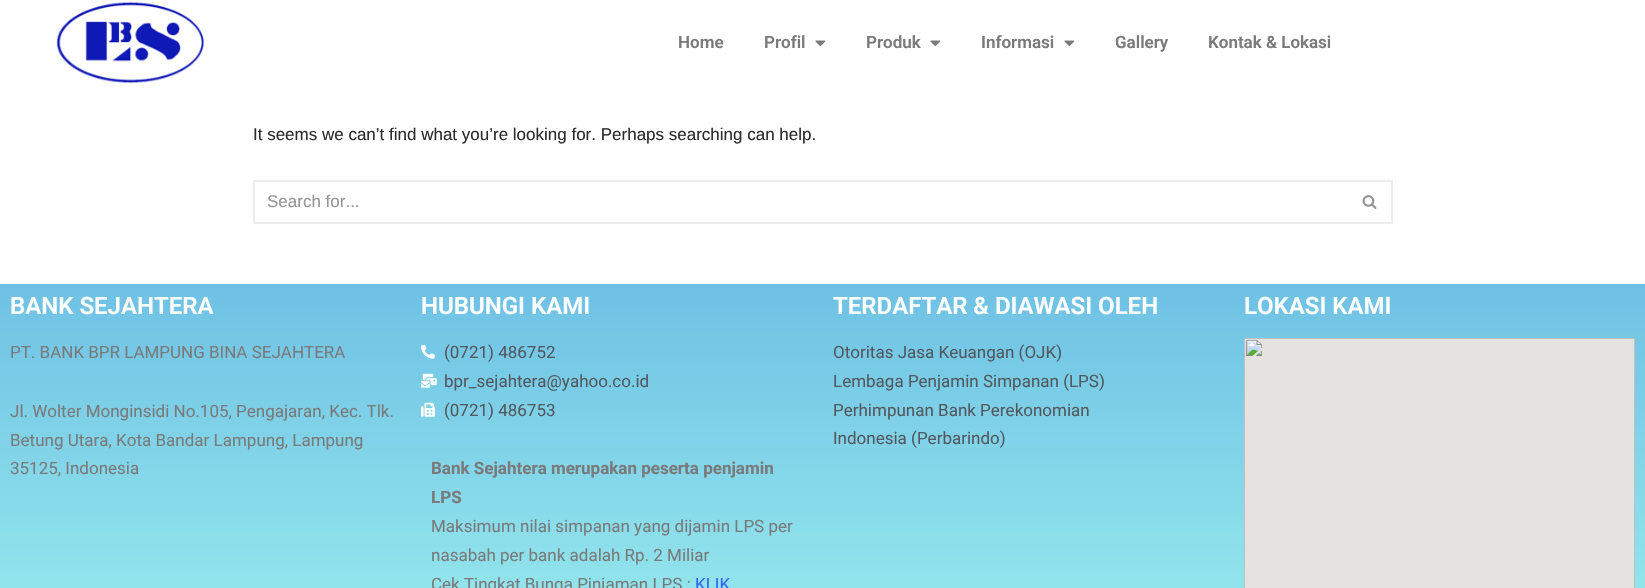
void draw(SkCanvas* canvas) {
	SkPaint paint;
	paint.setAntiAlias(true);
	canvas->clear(0xffffffff);
	canvas->drawImageRect(SkImages::DeferredFromEncodedData(SkData::MakeFromFileName("img1.png")), SkRect::MakeXYWH(56, 1, 149, 83), SkSamplingOptions());
	SkFont f1(fontMgr->matchFamilyStyle("Roboto", SkFontStyle(600, SkFontStyle::kNormal_Width, SkFontStyle::kUpright_Slant)), 17);
	f1.setSubpixel(true);
	paint.setColor(0xff7a7a7a);
	canvas->drawString("Home", 678, 48, f1, paint);
	canvas->drawString("Profil", 764, 48, f1, paint);
	canvas->drawImageRect(SkImages::DeferredFromEncodedData(SkData::MakeFromFileName("img2.png")), SkRect::MakeXYWH(815, 40, 11, 6), SkSamplingOptions());
	canvas->drawString("Produk", 866, 48, f1, paint);
	canvas->drawImageRect(SkImages::DeferredFromEncodedData(SkData::MakeFromFileName("img2.png")), SkRect::MakeXYWH(930, 40, 11, 6), SkSamplingOptions());
	canvas->drawString("Informasi", 981, 48, f1, paint);
	canvas->drawImageRect(SkImages::DeferredFromEncodedData(SkData::MakeFromFileName("img2.png")), SkRect::MakeXYWH(1064, 40, 11, 6), SkSamplingOptions());
	canvas->drawString("Gallery", 1115, 48, f1, paint);
	canvas->drawString("Kontak & Lokasi", 1208, 48, f1, paint);
	SkFont f2(fontMgr->matchFamilyStyle("Liberation Sans", SkFontStyle::Normal()), 17);
	f2.setSubpixel(true);
	paint.setColor(0xff2b2b2b);
	canvas->drawString("It seems we can’t find what you’re looking for. Perhaps searching can help.", 253, 140, f2, paint);
	paint.setColor(0xffededed);
	canvas->drawRect(SkRect::MakeXYWH(253, 180, 1140, 2), paint);
	canvas->drawRect(SkRect::MakeXYWH(253, 222, 1095, 2), paint);
	canvas->drawRect(SkRect::MakeXYWH(253, 180, 2, 44), paint);
	paint.setColor(0xff959595);
	canvas->drawString("Search for...", 267, 207, f2, paint);
	paint.setColor(0xffededed);
	canvas->drawRect(SkRect::MakeXYWH(1391, 180, 2, 44), paint);
	canvas->drawRect(SkRect::MakeXYWH(1348, 222, 45, 2), paint);
	canvas->drawImageRect(SkImages::DeferredFromEncodedData(SkData::MakeFromFileName("img3.png")), SkRect::MakeXYWH(1362, 195, 15, 14), SkSamplingOptions());
	{
		const SkColor colors[] = {0xff6ec1e4, 0xff98ebed};
		const float stops[] = {0, 1};
		const SkPoint ends[] = {{823, 284}, {823, 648}};
		paint.setShader(SkGradientShader::MakeLinear(ends, colors, stops, 2, SkTileMode::kClamp));
		paint.setAlpha(255);
	}
	canvas->drawRect(SkRect::MakeXYWH(0, 284, 1645, 304), paint);
	SkFont f3(fontMgr->matchFamilyStyle("Roboto", SkFontStyle(600, SkFontStyle::kNormal_Width, SkFontStyle::kUpright_Slant)), 24);
	f3.setSubpixel(true);
	paint.setShader(nullptr);
	paint.setColor(0xffffffff);
	canvas->drawString("BANK SEJAHTERA", 10, 314, f3, paint);
	SkFont f4(fontMgr->matchFamilyStyle("Roboto", SkFontStyle::Normal()), 17);
	f4.setSubpixel(true);
	paint.setColor(0xff7a7a7a);
	canvas->drawString("PT. BANK BPR LAMPUNG BINA SEJAHTERA", 10, 358, f4, paint);
	canvas->drawString("Jl. Wolter Monginsidi No.105, Pengajaran, Kec. Tlk.", 10, 417, f4, paint);
	canvas->drawString("Betung Utara, Kota Bandar Lampung, Lampung", 10, 446, f4, paint);
	canvas->drawString("35125, Indonesia", 10, 474, f4, paint);
	paint.setColor(0xffffffff);
	canvas->drawString("HUBUNGI KAMI", 421, 314, f3, paint);
	canvas->drawImageRect(SkImages::DeferredFromEncodedData(SkData::MakeFromFileName("img4.png")), SkRect::MakeXYWH(421, 344, 14, 15), SkSamplingOptions());
	paint.setColor(0xff54595f);
	canvas->drawString("(0721) 486752", 444, 358, f4, paint);
	canvas->drawImageRect(SkImages::DeferredFromEncodedData(SkData::MakeFromFileName("img5.png")), SkRect::MakeXYWH(421, 373, 16, 15), SkSamplingOptions());
	canvas->drawString("bpr_sejahtera@yahoo.co.id", 444, 387, f4, paint);
	canvas->drawImageRect(SkImages::DeferredFromEncodedData(SkData::MakeFromFileName("img6.png")), SkRect::MakeXYWH(421, 402, 14, 15), SkSamplingOptions());
	canvas->drawString("(0721) 486753", 444, 416, f4, paint);
	SkFont f5(fontMgr->matchFamilyStyle("Roboto", SkFontStyle::Bold()), 17);
	f5.setSubpixel(true);
	paint.setColor(0xff7a7a7a);
	canvas->drawString("Bank Sejahtera merupakan peserta penjamin", 431, 474, f5, paint);
	canvas->drawString("LPS", 431, 503, f5, paint);
	canvas->drawString("Maksimum nilai simpanan yang dijamin LPS per", 431, 532, f4, paint);
	canvas->drawString("nasabah per bank adalah Rp. 2 Miliar", 431, 561, f4, paint);
	canvas->drawString("Cek Tingkat Bunga Pinjaman LPS :", 431, 590, f4, paint);
	paint.setColor(0xff3366ff);
	canvas->drawString("KLIK", 695, 590, f4, paint);
	paint.setColor(0xffffffff);
	canvas->drawString("TERDAFTAR & DIAWASI OLEH", 833, 314, f3, paint);
	paint.setColor(0xff54595f);
	canvas->drawString("Otoritas Jasa Keuangan (OJK)", 833, 358, f4, paint);
	canvas->drawString("Lembaga Penjamin Simpanan (LPS)", 833, 387, f4, paint);
	canvas->drawString("Perhimpunan Bank Perekonomian", 833, 416, f4, paint);
	canvas->drawString("Indonesia (Perbarindo)", 833, 444, f4, paint);
	paint.setColor(0xffffffff);
	canvas->drawString("LOKASI KAMI", 1244, 314, f3, paint);
	canvas->drawImageRect(SkImages::DeferredFromEncodedData(SkData::MakeFromFileName("img7.png")), SkRect::MakeXYWH(1244, 338, 391, 250), SkSamplingOptions());
}
